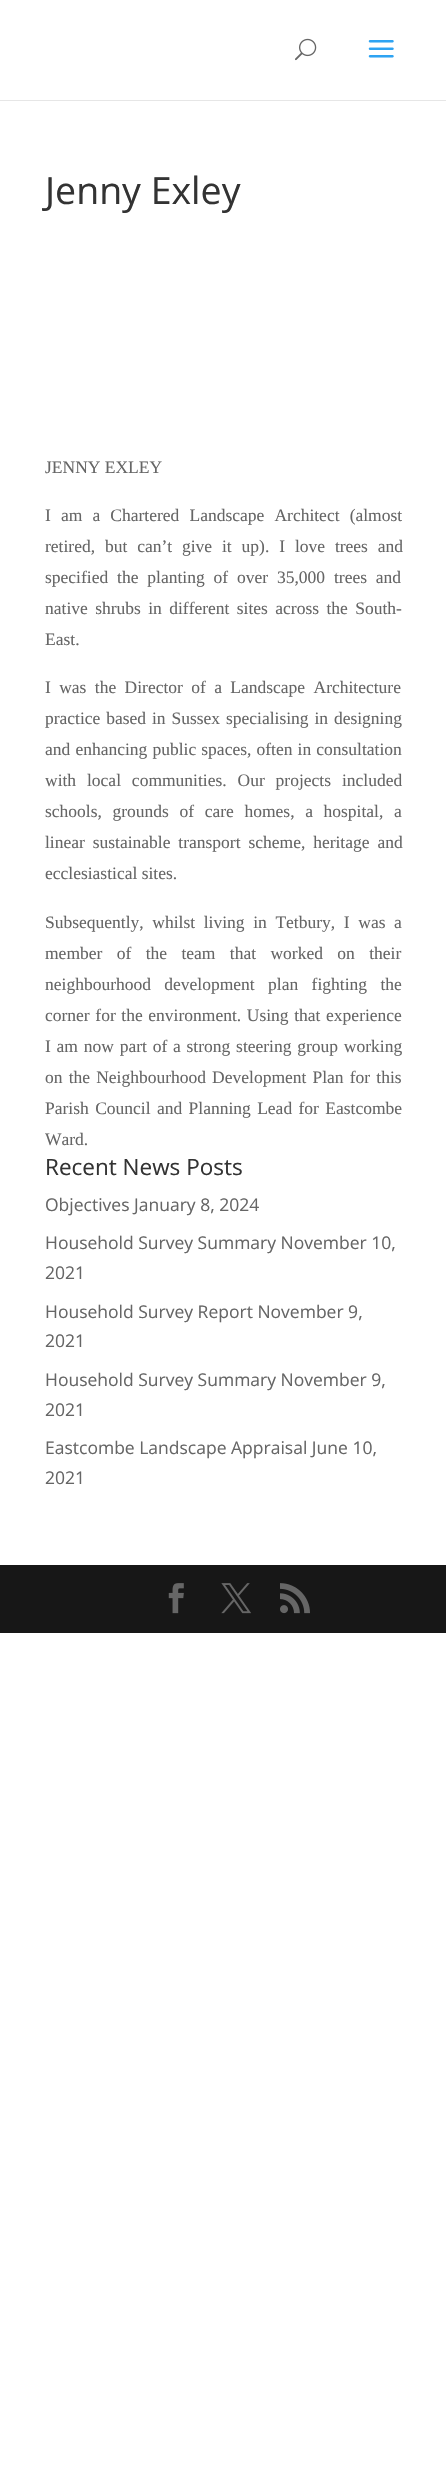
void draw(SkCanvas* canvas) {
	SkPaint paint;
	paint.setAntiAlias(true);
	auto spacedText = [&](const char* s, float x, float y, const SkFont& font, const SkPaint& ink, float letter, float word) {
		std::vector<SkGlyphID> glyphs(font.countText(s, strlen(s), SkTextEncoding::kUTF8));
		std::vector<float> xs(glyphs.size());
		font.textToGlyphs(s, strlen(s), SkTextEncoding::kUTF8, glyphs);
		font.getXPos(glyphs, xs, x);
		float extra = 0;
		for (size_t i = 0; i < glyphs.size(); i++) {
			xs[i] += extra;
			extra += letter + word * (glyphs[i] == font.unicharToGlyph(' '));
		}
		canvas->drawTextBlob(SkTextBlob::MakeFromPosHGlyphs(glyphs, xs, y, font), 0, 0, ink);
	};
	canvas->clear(0xffffffff);
	paint.setColor(0xffe6e6e6);
	canvas->drawRect(SkRect::MakeXYWH(0, 100, 446, 1), paint);
	canvas->drawImageRect(SkImages::DeferredFromEncodedData(SkData::MakeFromFileName("img1.png")), SkRect::MakeXYWH(295, 38, 22, 23), SkSamplingOptions());
	canvas->drawImageRect(SkImages::DeferredFromEncodedData(SkData::MakeFromFileName("img2.png")), SkRect::MakeXYWH(368, 40, 26, 18), SkSamplingOptions());
	SkFont f1(fontMgr->matchFamilyStyle("Open Sans", SkFontStyle::Normal()), 37.5);
	f1.setSubpixel(true);
	paint.setColor(0xff333333);
	canvas->drawString("Jenny Exley", 45, 204, f1, paint);
	SkFont f2(fontMgr->matchFamilyStyle("Liberation Serif", SkFontStyle::Normal()), 17.5);
	f2.setSubpixel(true);
	paint.setColor(0xff666666);
	canvas->drawString("JENNY EXLEY", 45, 473, f2, paint);
	spacedText("I am a Chartered Landscape Architect (almost", 45, 521, f2, paint, 0, 5.75);
	spacedText("retired, but can’t give it up). I love trees and", 45, 552, f2, paint, 0, 5.5);
	spacedText("specified the planting of over 35,000 trees and", 45, 583, f2, paint, 0, 4.5);
	spacedText("native shrubs in different sites across the South-", 45, 614, f2, paint, 0, 3);
	canvas->drawString("East.", 45, 645, f2, paint);
	spacedText("I was the Director of a Landscape Architecture", 45, 693, f2, paint, 0, 4);
	spacedText("practice based in Sussex specialising in designing", 45, 724, f2, paint, 0, 1.5);
	spacedText("and enhancing public spaces, often in consultation", 45, 755, f2, paint, 0, 0.75);
	spacedText("with local communities. Our projects included", 45, 786, f2, paint, 0, 6.5);
	spacedText("schools, grounds of care homes, a hospital, a", 45, 817, f2, paint, 0, 6.25);
	spacedText("linear sustainable transport scheme, heritage and", 45, 848, f2, paint, 0, 3.5);
	canvas->drawString("ecclesiastical sites.", 45, 879, f2, paint);
	spacedText("Subsequently, whilst living in Tetbury, I was a", 45, 928, f2, paint, 0, 4.25);
	spacedText("member of the team that worked on their", 45, 959, f2, paint, 0, 10);
	spacedText("neighbourhood development plan fighting the", 45, 990, f2, paint, 0, 9);
	spacedText("corner for the environment. Using that experience", 45, 1021, f2, paint, 0, 1.25);
	spacedText("I am now part of a strong steering group working", 45, 1052, f2, paint, 0, 1.4);
	spacedText("on the Neighbourhood Development Plan for this", 45, 1083, f2, paint, 0, 1.75);
	spacedText("Parish Council and Planning Lead for Eastcombe", 45, 1114, f2, paint, 0, 2);
	canvas->drawString("Ward.", 45, 1145, f2, paint);
	SkFont f3(fontMgr->matchFamilyStyle("Open Sans", SkFontStyle::Normal()), 22.5);
	f3.setSubpixel(true);
	paint.setColor(0xff333333);
	canvas->drawString("Recent News Posts", 45, 1175, f3, paint);
	SkFont f4(fontMgr->matchFamilyStyle("Open Sans", SkFontStyle::Normal()), 17.5);
	f4.setSubpixel(true);
	paint.setColor(0xff666666);
	canvas->drawString("Objectives January 8, 2024", 45, 1211, f4, paint);
	canvas->drawString("Household Survey Summary November 10,", 45, 1249, f4, paint);
	canvas->drawString("2021", 45, 1279, f4, paint);
	canvas->drawString("Household Survey Report November 9,", 45, 1318, f4, paint);
	canvas->drawString("2021", 45, 1347, f4, paint);
	canvas->drawString("Household Survey Summary November 9,", 45, 1386, f4, paint);
	canvas->drawString("2021", 45, 1416, f4, paint);
	canvas->drawString("Eastcombe Landscape Appraisal June 10,", 45, 1454, f4, paint);
	canvas->drawString("2021", 45, 1484, f4, paint);
	paint.setColor(0xff171717);
	canvas->drawRect(SkRect::MakeXYWH(0, 1565, 446, 68), paint);
	canvas->drawImageRect(SkImages::DeferredFromEncodedData(SkData::MakeFromFileName("img3.png")), SkRect::MakeXYWH(168, 1583, 16, 31), SkSamplingOptions());
	canvas->drawImageRect(SkImages::DeferredFromEncodedData(SkData::MakeFromFileName("img4.png")), SkRect::MakeXYWH(221, 1583, 30, 31), SkSamplingOptions());
	canvas->drawImageRect(SkImages::DeferredFromEncodedData(SkData::MakeFromFileName("img5.png")), SkRect::MakeXYWH(280, 1583, 30, 31), SkSamplingOptions());
}
